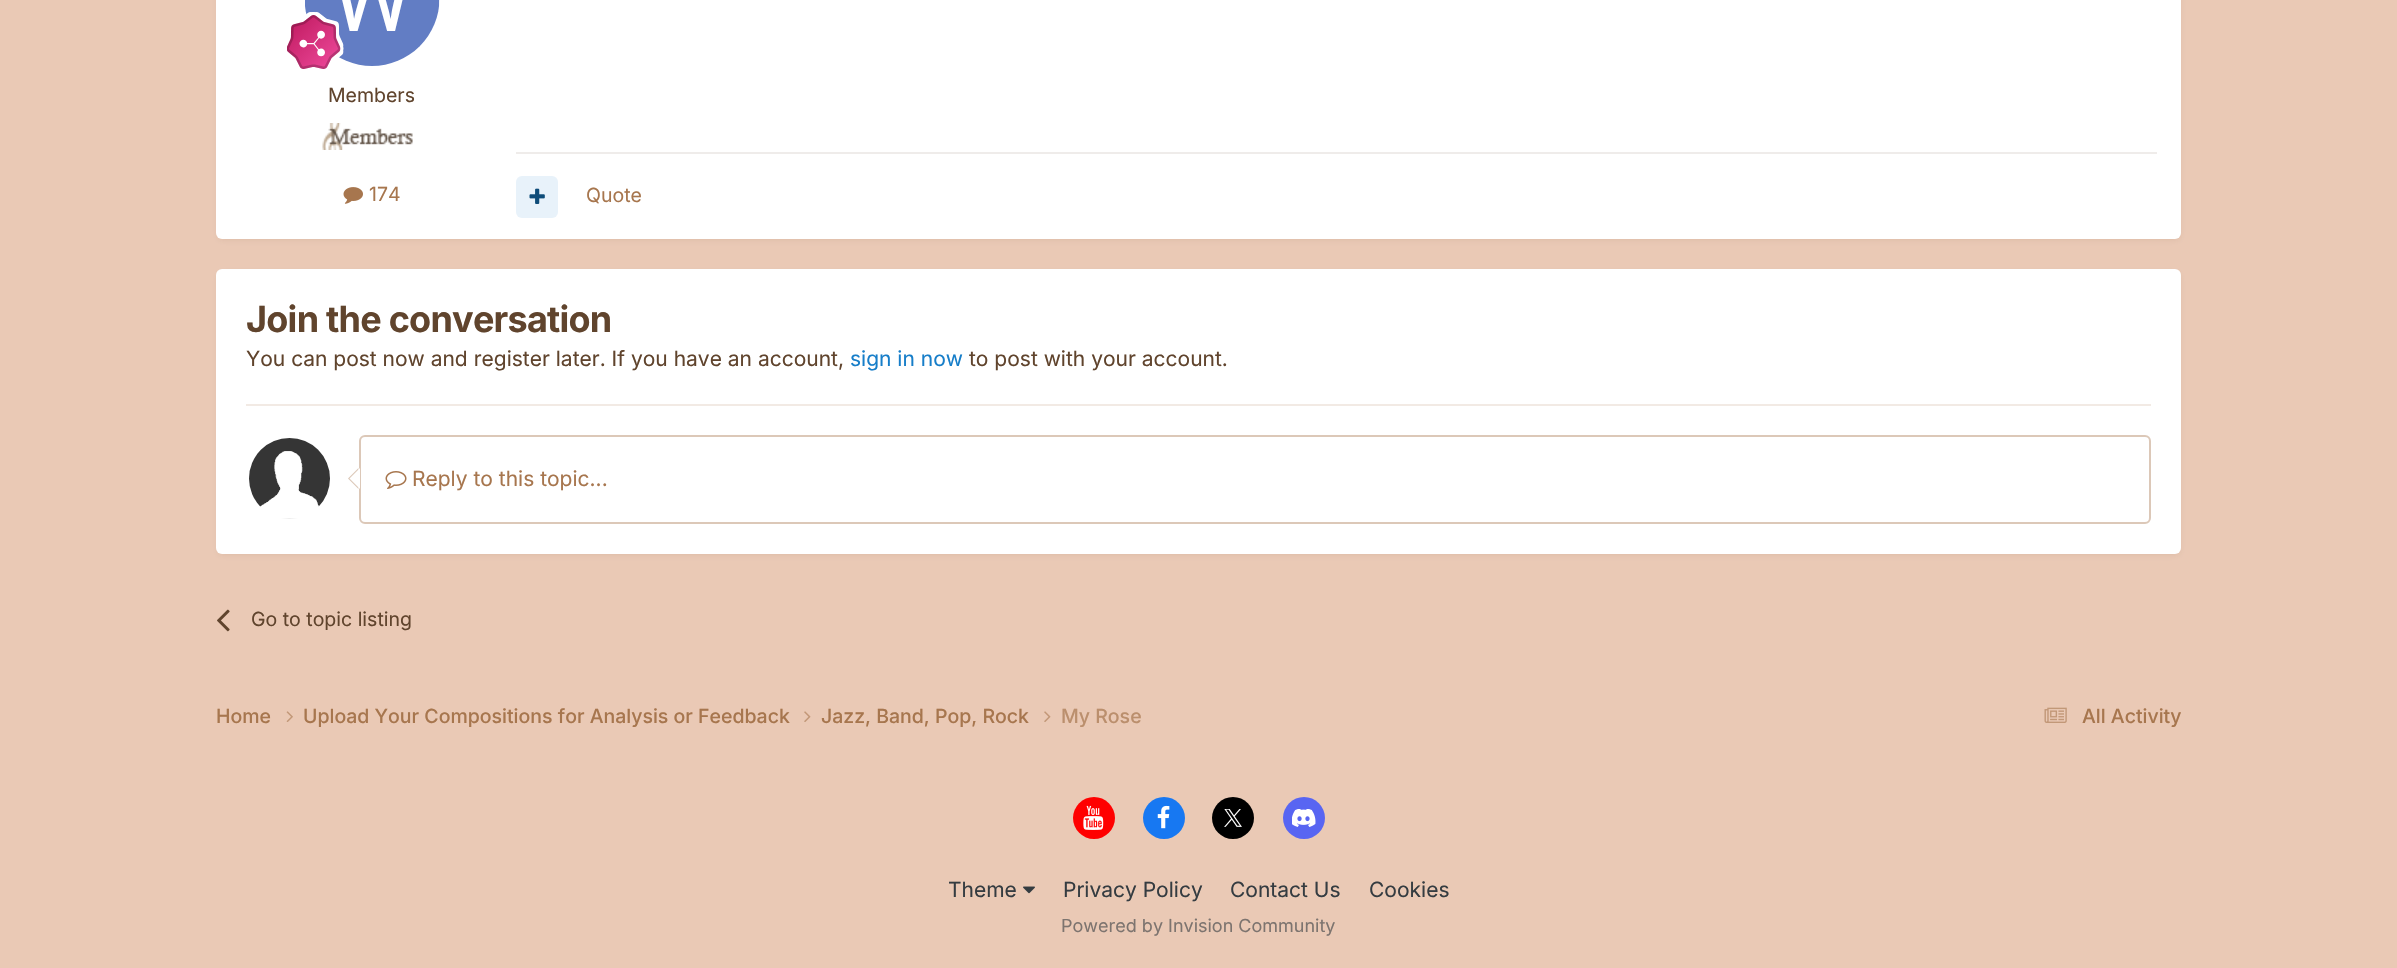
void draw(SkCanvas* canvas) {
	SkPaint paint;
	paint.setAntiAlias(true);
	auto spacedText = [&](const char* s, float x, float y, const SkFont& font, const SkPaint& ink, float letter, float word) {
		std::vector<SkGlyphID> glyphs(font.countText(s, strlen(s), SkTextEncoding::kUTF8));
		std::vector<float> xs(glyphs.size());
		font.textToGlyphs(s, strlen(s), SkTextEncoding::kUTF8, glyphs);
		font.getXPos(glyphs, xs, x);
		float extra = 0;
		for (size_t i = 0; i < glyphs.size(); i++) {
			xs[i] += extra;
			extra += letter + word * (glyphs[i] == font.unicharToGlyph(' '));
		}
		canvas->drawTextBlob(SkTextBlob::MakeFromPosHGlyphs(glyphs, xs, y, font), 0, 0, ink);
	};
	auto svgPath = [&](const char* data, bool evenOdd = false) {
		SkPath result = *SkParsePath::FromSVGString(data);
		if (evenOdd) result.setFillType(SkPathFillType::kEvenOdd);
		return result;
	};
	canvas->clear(0xffeac9b5);
	paint.setColor(0x1a60442d);
	paint.setMaskFilter(SkMaskFilter::MakeBlur(kNormal_SkBlurStyle, 3));
	canvas->drawRoundRect(SkRect::MakeXYWH(218, -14, 1962, 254), 5, 5, paint);
	paint.setMaskFilter(nullptr);
	paint.setColor(0xffffffff);
	canvas->drawRoundRect(SkRect::MakeXYWH(216, -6, 1965, 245), 6, 6, paint);
	canvas->drawImageRect(SkImages::DeferredFromEncodedData(SkData::MakeFromFileName("img1.png")), SkRect::MakeXYWH(305, 0, 135, 66), SkSamplingOptions());
	canvas->drawImageRect(SkImages::DeferredFromEncodedData(SkData::MakeFromFileName("img2.png")), SkRect::MakeXYWH(287, 12, 57, 57), SkSamplingOptions());
	SkFont f1(fontMgr->matchFamilyStyle("Inter", SkFontStyle::Normal()), 19.5);
	f1.setSubpixel(true);
	paint.setColor(0xff60442d);
	canvas->drawString("Members", 328, 102, f1, paint);
	canvas->drawImageRect(SkImages::DeferredFromEncodedData(SkData::MakeFromFileName("img3.png")), SkRect::MakeXYWH(322, 123, 91, 27), SkSamplingOptions());
	canvas->drawImageRect(SkImages::DeferredFromEncodedData(SkData::MakeFromFileName("img4.png")), SkRect::MakeXYWH(343, 187, 20, 17), SkSamplingOptions());
	paint.setColor(0xffa7764e);
	canvas->drawString("174", 369, 201, f1, paint);
	paint.setColor(0xffefecea);
	canvas->drawRect(SkRect::MakeXYWH(516, 152, 1641, 2), paint);
	paint.setColor(0xffe8f2fa);
	canvas->drawRoundRect(SkRect::MakeXYWH(516, 176, 42, 42), 6, 6, paint);
	canvas->drawImageRect(SkImages::DeferredFromEncodedData(SkData::MakeFromFileName("img5.png")), SkRect::MakeXYWH(529, 188, 16, 16), SkSamplingOptions());
	paint.setColor(0xffa7764e);
	canvas->drawString("Quote", 586, 202, f1, paint);
	paint.setColor(0x1a60442d);
	paint.setMaskFilter(SkMaskFilter::MakeBlur(kNormal_SkBlurStyle, 3));
	canvas->drawRoundRect(SkRect::MakeXYWH(218, 273, 1962, 282), 5, 5, paint);
	paint.setMaskFilter(nullptr);
	paint.setColor(0xffffffff);
	canvas->drawRoundRect(SkRect::MakeXYWH(216, 269, 1965, 285), 6, 6, paint);
	paint.setColor(0xfff2eae4);
	canvas->drawRect(SkRect::MakeXYWH(246, 404, 1905, 2), paint);
	SkFont f2(fontMgr->matchFamilyStyle("Inter", SkFontStyle::Bold()), 36);
	f2.setSubpixel(true);
	paint.setColor(0xff60442d);
	spacedText("Join the conversation", 246, 332, f2, paint, -0.75, 0);
	SkFont f3(fontMgr->matchFamilyStyle("Inter", SkFontStyle::Normal()), 21);
	f3.setSubpixel(true);
	canvas->drawString("You can post now and register later. If you have an account,", 246, 366, f3, paint);
	paint.setColor(0xff177ec9);
	canvas->drawString("sign in now", 850, 366, f3, paint);
	paint.setColor(0xff60442d);
	canvas->drawString("to post with your account.", 969, 366, f3, paint);
	canvas->drawImageRect(SkImages::DeferredFromEncodedData(SkData::MakeFromFileName("img6.png")), SkRect::MakeXYWH(249, 438, 81, 81), SkSamplingOptions());
	paint.setStroke(true);
	paint.setStrokeWidth(2);
	paint.setColor(0xffdcc8b8);
	canvas->drawRoundRect(SkRect::MakeXYWH(360, 436, 1790, 87), 5, 5, paint);
	paint.setStroke(false);
	canvas->drawPath(svgPath("M358.5 468V489L348 478.5Z"), paint);
	paint.setColor(0xffffffff);
	canvas->drawPath(svgPath("M360 468V489L349.5 478.5Z"), paint);
	canvas->drawImageRect(SkImages::DeferredFromEncodedData(SkData::MakeFromFileName("img7.png")), SkRect::MakeXYWH(385, 471, 22, 18), SkSamplingOptions());
	paint.setColor(0xffa7764e);
	canvas->drawString("Reply to this topic...", 412, 486, f3, paint);
	canvas->drawImageRect(SkImages::DeferredFromEncodedData(SkData::MakeFromFileName("img8.png")), SkRect::MakeXYWH(217, 609, 13, 23), SkSamplingOptions());
	paint.setColor(0xff60442d);
	canvas->drawString("Go to topic listing", 251, 626, f1, paint);
	SkFont f4(fontMgr->matchFamilyStyle("Inter", SkFontStyle(500, SkFontStyle::kNormal_Width, SkFontStyle::kUpright_Slant)), 19.5);
	f4.setSubpixel(true);
	paint.setColor(0xffa7764e);
	canvas->drawString("Home", 216, 723, f4, paint);
	canvas->drawImageRect(SkImages::DeferredFromEncodedData(SkData::MakeFromFileName("img9.png")), SkRect::MakeXYWH(286, 711, 7, 11), SkSamplingOptions());
	canvas->drawString("Upload Your Compositions for Analysis or Feedback", 303, 723, f4, paint);
	canvas->drawImageRect(SkImages::DeferredFromEncodedData(SkData::MakeFromFileName("img10.png")), SkRect::MakeXYWH(804, 711, 7, 11), SkSamplingOptions());
	canvas->drawString("Jazz, Band, Pop, Rock", 821, 723, f4, paint);
	canvas->drawImageRect(SkImages::DeferredFromEncodedData(SkData::MakeFromFileName("img10.png")), SkRect::MakeXYWH(1044, 711, 7, 11), SkSamplingOptions());
	paint.setColor(0xffbb8f6d);
	canvas->drawString("My Rose", 1061, 723, f4, paint);
	canvas->drawImageRect(SkImages::DeferredFromEncodedData(SkData::MakeFromFileName("img11.png")), SkRect::MakeXYWH(2044, 707, 23, 16), SkSamplingOptions());
	paint.setColor(0xffa7764e);
	canvas->drawString("All Activity", 2082, 723, f4, paint);
	paint.setColor(0xffff0000);
	canvas->drawCircle(1094, 818, 21, paint);
	canvas->drawImageRect(SkImages::DeferredFromEncodedData(SkData::MakeFromFileName("img12.png")), SkRect::MakeXYWH(1083, 805, 21, 25), SkSamplingOptions());
	paint.setColor(0xff1778f2);
	canvas->drawCircle(1164, 818, 21, paint);
	canvas->drawImageRect(SkImages::DeferredFromEncodedData(SkData::MakeFromFileName("img13.png")), SkRect::MakeXYWH(1157, 805, 13, 24), SkSamplingOptions());
	paint.setColor(0xff000000);
	canvas->drawCircle(1233, 818, 21, paint);
	canvas->drawImageRect(SkImages::DeferredFromEncodedData(SkData::MakeFromFileName("img14.png")), SkRect::MakeXYWH(1224, 809, 18, 18), SkSamplingOptions());
	paint.setColor(0xff5865f2);
	canvas->drawCircle(1304, 818, 21, paint);
	canvas->drawImageRect(SkImages::DeferredFromEncodedData(SkData::MakeFromFileName("img15.png")), SkRect::MakeXYWH(1292, 809, 24, 18), SkSamplingOptions());
	paint.setColor(0xff353c41);
	canvas->drawString("Theme", 948, 897, f3, paint);
	canvas->drawImageRect(SkImages::DeferredFromEncodedData(SkData::MakeFromFileName("img16.png")), SkRect::MakeXYWH(1023, 886, 12, 8), SkSamplingOptions());
	canvas->drawString("Privacy Policy", 1063, 897, f3, paint);
	canvas->drawString("Contact Us", 1230, 897, f3, paint);
	canvas->drawString("Cookies", 1369, 897, f3, paint);
	SkFont f5(fontMgr->matchFamilyStyle("Inter", SkFontStyle::Normal()), 18);
	f5.setSubpixel(true);
	paint.setColor(0xff7d746f);
	canvas->drawString("Powered by Invision Community", 1061, 932, f5, paint);
}
